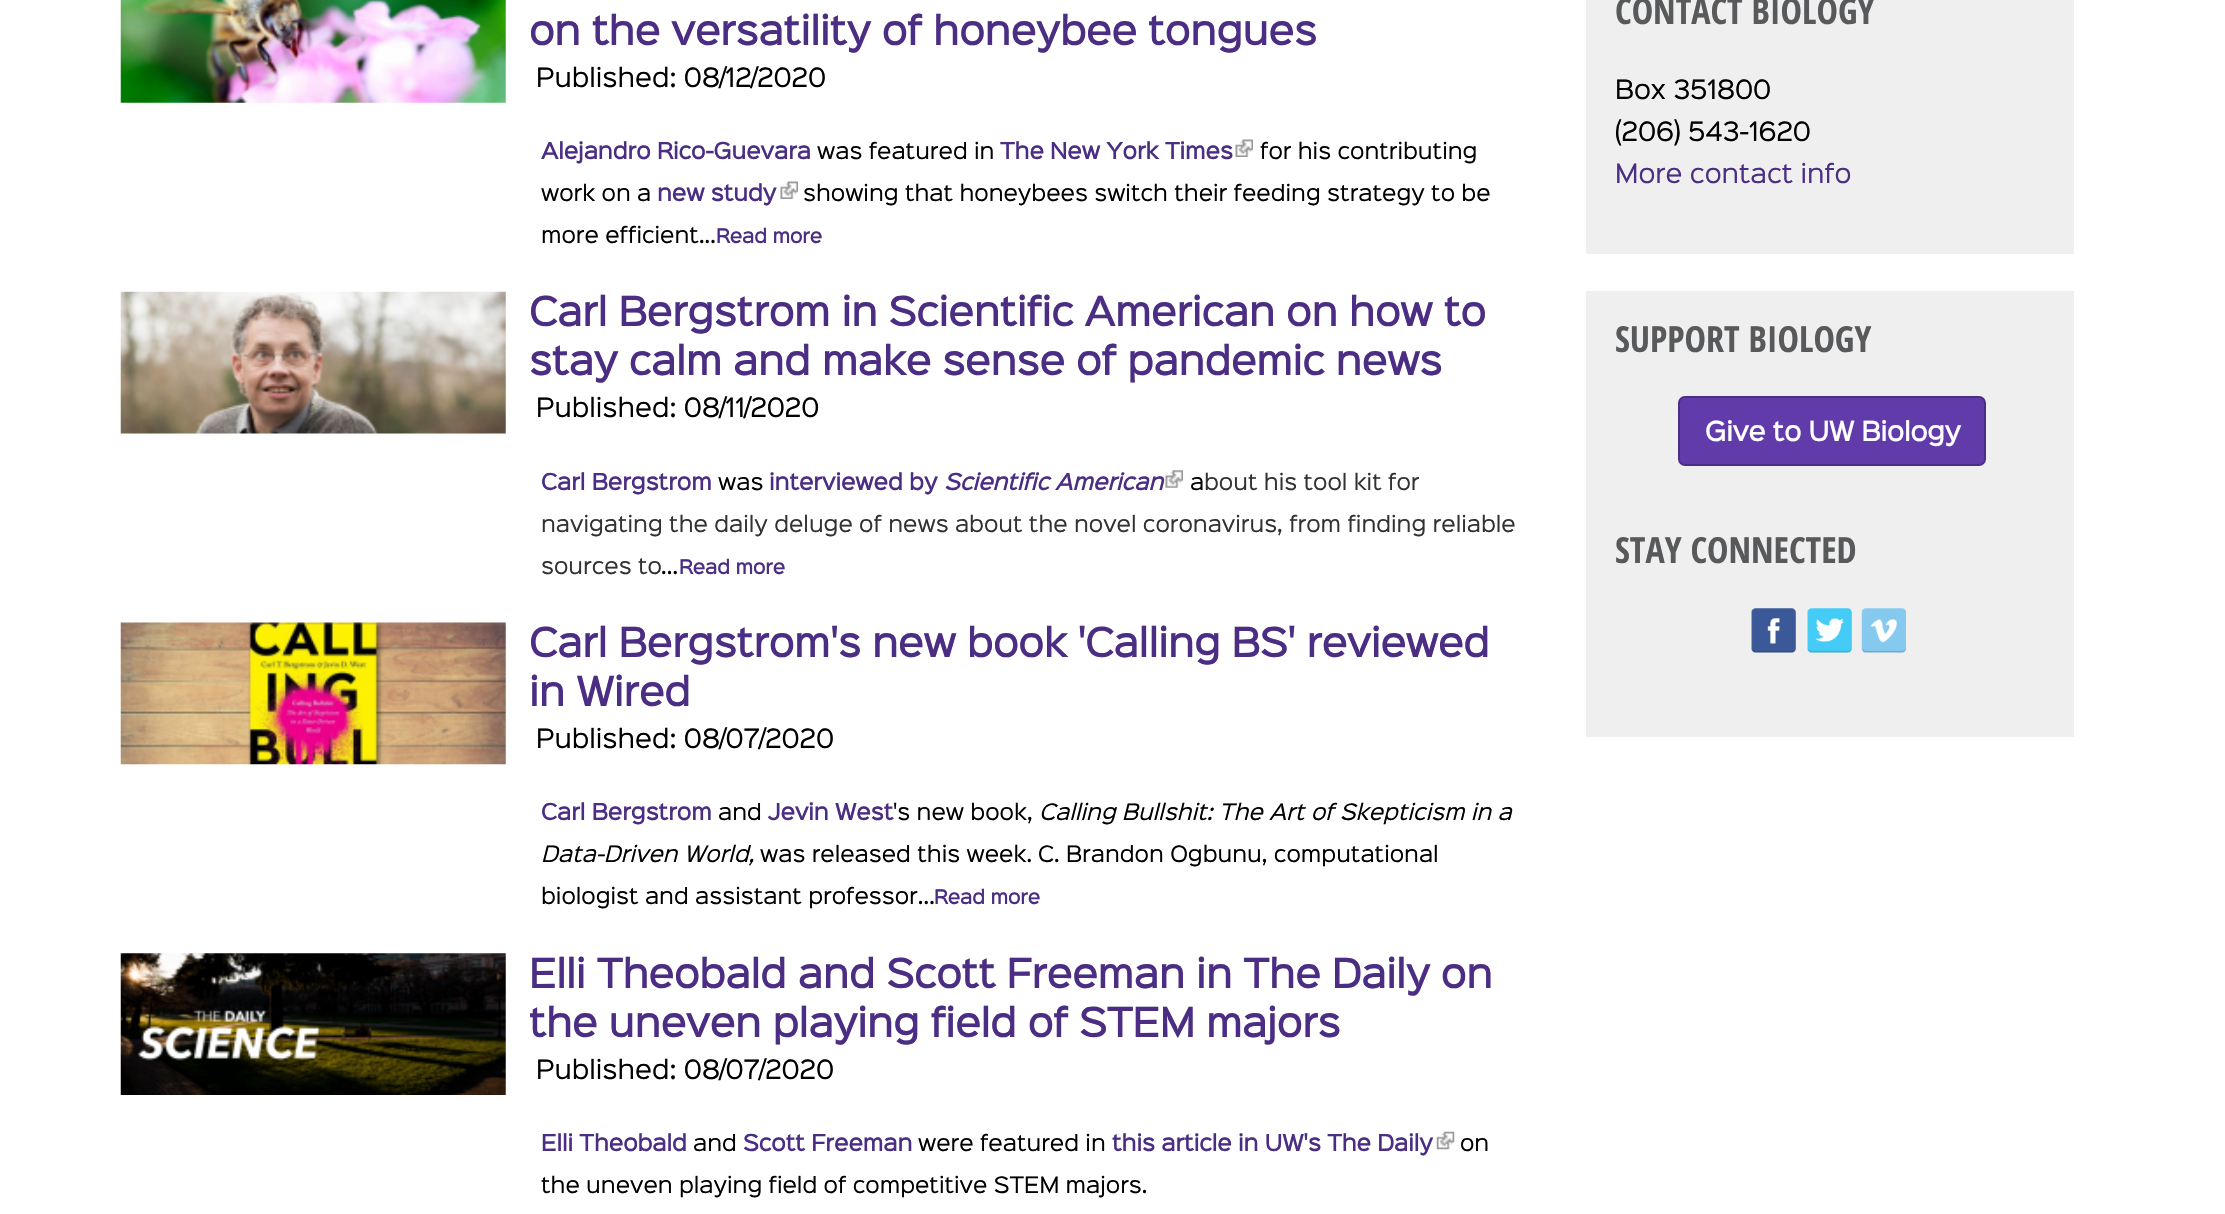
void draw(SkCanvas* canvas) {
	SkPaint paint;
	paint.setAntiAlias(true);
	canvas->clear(0xffffffff);
	canvas->drawImageRect(SkImages::DeferredFromEncodedData(SkData::MakeFromFileName("img1.png")), SkRect::MakeXYWH(120, 0, 386, 103), SkSamplingOptions());
	SkFont f1(fontMgr->matchFamilyStyle("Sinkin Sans", SkFontStyle::Bold()), 36);
	f1.setSubpixel(true);
	paint.setColor(0xff4b2e83);
	canvas->drawString("on the versatility of honeybee tongues", 529, 45, f1, paint);
	SkFont f2(fontMgr->matchFamilyStyle("Sinkin Sans", SkFontStyle::Normal()), 24);
	f2.setSubpixel(true);
	paint.setColor(0xff000000);
	canvas->drawString("Published: 08/12/2020", 536, 87, f2, paint);
	SkFont f3(fontMgr->matchFamilyStyle("Sinkin Sans", SkFontStyle::Bold()), 20.4);
	f3.setSubpixel(true);
	paint.setColor(0xff4b2e83);
	canvas->drawString("Alejandro Rico-Guevara", 541, 159, f3, paint);
	SkFont f4(fontMgr->matchFamilyStyle("Sinkin Sans", SkFontStyle::Normal()), 20.4);
	f4.setSubpixel(true);
	paint.setColor(0xff000000);
	canvas->drawString("was featured in", 817, 159, f4, paint);
	paint.setColor(0xff4b2e83);
	canvas->drawString("The New York Times", 1000, 159, f3, paint);
	canvas->drawImageRect(SkImages::DeferredFromEncodedData(SkData::MakeFromFileName("img2.png")), SkRect::MakeXYWH(1235, 139, 18, 18), SkSamplingOptions());
	paint.setColor(0xff000000);
	canvas->drawString("for his contributing", 1260, 159, f4, paint);
	canvas->drawString("work on a", 541, 201, f4, paint);
	paint.setColor(0xff4b2e83);
	canvas->drawString("new study", 657, 201, f3, paint);
	canvas->drawImageRect(SkImages::DeferredFromEncodedData(SkData::MakeFromFileName("img3.png")), SkRect::MakeXYWH(780, 181, 18, 18), SkSamplingOptions());
	paint.setColor(0xff000000);
	canvas->drawString("showing that honeybees switch their feeding strategy to be", 803, 201, f4, paint);
	canvas->drawString("more efficient...", 541, 243, f4, paint);
	SkFont f5(fontMgr->matchFamilyStyle("Sinkin Sans", SkFontStyle::Bold()), 17.5);
	f5.setSubpixel(true);
	paint.setColor(0xff4b2e83);
	canvas->drawString("Read more", 716, 243, f5, paint);
	canvas->drawImageRect(SkImages::DeferredFromEncodedData(SkData::MakeFromFileName("img4.png")), SkRect::MakeXYWH(120, 291, 386, 143), SkSamplingOptions());
	canvas->drawString("Carl Bergstrom in Scientific American on how to", 529, 326, f1, paint);
	canvas->drawString("stay calm and make sense of pandemic news", 529, 375, f1, paint);
	paint.setColor(0xff000000);
	canvas->drawString("Published: 08/11/2020", 536, 417, f2, paint);
	paint.setColor(0xff4b2e83);
	canvas->drawString("Carl Bergstrom", 541, 490, f3, paint);
	paint.setColor(0xff000000);
	canvas->drawString("was", 718, 490, f4, paint);
	paint.setColor(0xff4b2e83);
	canvas->drawString("interviewed by", 769, 490, f3, paint);
	SkFont f6(fontMgr->matchFamilyStyle("Sinkin Sans", SkFontStyle::BoldItalic()), 20.4);
	f6.setSubpixel(true);
	canvas->drawString("Scientific American", 944, 490, f6, paint);
	canvas->drawImageRect(SkImages::DeferredFromEncodedData(SkData::MakeFromFileName("img5.png")), SkRect::MakeXYWH(1165, 470, 18, 18), SkSamplingOptions());
	paint.setColor(0xff000000);
	canvas->drawString("a", 1190, 490, f4, paint);
	paint.setColor(0xff323232);
	canvas->drawString("bout his tool kit for", 1204, 490, f4, paint);
	canvas->drawString("navigating the daily deluge of news about the novel coronavirus, from finding reliable", 541, 532, f4, paint);
	canvas->drawString("sources to", 541, 574, f4, paint);
	paint.setColor(0xff000000);
	canvas->drawString("...", 661, 574, f4, paint);
	paint.setColor(0xff4b2e83);
	canvas->drawString("Read more", 679, 574, f5, paint);
	canvas->drawImageRect(SkImages::DeferredFromEncodedData(SkData::MakeFromFileName("img6.png")), SkRect::MakeXYWH(120, 622, 386, 143), SkSamplingOptions());
	canvas->drawString("Carl Bergstrom's new book 'Calling BS' reviewed", 529, 657, f1, paint);
	canvas->drawString("in Wired", 529, 706, f1, paint);
	paint.setColor(0xff000000);
	canvas->drawString("Published: 08/07/2020", 536, 748, f2, paint);
	paint.setColor(0xff4b2e83);
	canvas->drawString("Carl Bergstrom", 541, 820, f3, paint);
	paint.setColor(0xff000000);
	canvas->drawString("and", 718, 820, f4, paint);
	paint.setColor(0xff4b2e83);
	canvas->drawString("Jevin West", 768, 820, f3, paint);
	paint.setColor(0xff000000);
	canvas->drawString("'s new book,", 893, 820, f4, paint);
	SkFont f7(fontMgr->matchFamilyStyle("Sinkin Sans", SkFontStyle::Italic()), 20.4);
	f7.setSubpixel(true);
	canvas->drawString("Calling Bullshit: The Art of Skepticism in a", 1039, 820, f7, paint);
	canvas->drawString("Data-Driven World,", 541, 862, f7, paint);
	canvas->drawString("was released this week.", 760, 862, f4, paint);
	canvas->drawString("C. Brandon Ogbunu, computational", 1038, 862, f4, paint);
	canvas->drawString("biologist and assistant professor...", 541, 904, f4, paint);
	paint.setColor(0xff4b2e83);
	canvas->drawString("Read more", 934, 904, f5, paint);
	canvas->drawImageRect(SkImages::DeferredFromEncodedData(SkData::MakeFromFileName("img7.png")), SkRect::MakeXYWH(120, 953, 386, 142), SkSamplingOptions());
	canvas->drawString("Elli Theobald and Scott Freeman in The Daily on", 529, 988, f1, paint);
	canvas->drawString("the uneven playing field of STEM majors", 529, 1037, f1, paint);
	paint.setColor(0xff000000);
	canvas->drawString("Published: 08/07/2020", 536, 1079, f2, paint);
	paint.setColor(0xff4b2e83);
	canvas->drawString("Elli Theobald", 541, 1151, f3, paint);
	paint.setColor(0xff000000);
	canvas->drawString("and", 693, 1151, f4, paint);
	paint.setColor(0xff4b2e83);
	canvas->drawString("Scott Freeman", 743, 1151, f3, paint);
	paint.setColor(0xff000000);
	canvas->drawString("were featured in", 918, 1151, f4, paint);
	paint.setColor(0xff4b2e83);
	canvas->drawString("this article in UW's The Daily", 1112, 1151, f3, paint);
	canvas->drawImageRect(SkImages::DeferredFromEncodedData(SkData::MakeFromFileName("img8.png")), SkRect::MakeXYWH(1436, 1131, 19, 19), SkSamplingOptions());
	paint.setColor(0xff000000);
	canvas->drawString("on", 1460, 1151, f4, paint);
	canvas->drawString("the uneven playing field of competitive STEM majors.", 541, 1193, f4, paint);
	paint.setColor(0xffefefef);
	canvas->drawRect(SkRect::MakeXYWH(1586, 0, 488, 254), paint);
	SkFont f8(fontMgr->matchFamilyStyle("Open Sans Condensed", SkFontStyle::Bold()), 36);
	f8.setSubpixel(true);
	paint.setColor(0xff58595b);
	canvas->drawString("CONTACT BIOLOGY", 1615, 24, f8, paint);
	paint.setColor(0xff000000);
	canvas->drawString("Box 351800", 1615, 99, f2, paint);
	canvas->drawString("(206) 543-1620", 1615, 141, f2, paint);
	paint.setColor(0xff4b2e83);
	canvas->drawString("More contact info", 1615, 183, f2, paint);
	paint.setColor(0xffefefef);
	canvas->drawRect(SkRect::MakeXYWH(1586, 291, 488, 446), paint);
	paint.setColor(0xff58595b);
	canvas->drawString("SUPPORT BIOLOGY", 1615, 352, f8, paint);
	paint.setColor(0xff613ba9);
	canvas->drawRoundRect(SkRect::MakeXYWH(1679, 397, 306, 68), 6, 6, paint);
	paint.setStroke(true);
	paint.setStrokeWidth(2);
	paint.setColor(0xff4b2e83);
	canvas->drawRoundRect(SkRect::MakeXYWH(1679, 397, 306, 68), 6, 6, paint);
	SkFont f9(fontMgr->matchFamilyStyle("Sinkin Sans", SkFontStyle::Bold()), 24);
	f9.setSubpixel(true);
	paint.setStroke(false);
	paint.setColor(0xffffffff);
	canvas->drawString("Give to UW Biology", 1705, 441, f9, paint);
	paint.setColor(0xff58595b);
	canvas->drawString("STAY CONNECTED", 1615, 563, f8, paint);
	canvas->drawImageRect(SkImages::DeferredFromEncodedData(SkData::MakeFromFileName("img9.png")), SkRect::MakeXYWH(1751, 608, 45, 45), SkSamplingOptions());
	canvas->drawImageRect(SkImages::DeferredFromEncodedData(SkData::MakeFromFileName("img10.png")), SkRect::MakeXYWH(1807, 608, 45, 45), SkSamplingOptions());
	canvas->drawImageRect(SkImages::DeferredFromEncodedData(SkData::MakeFromFileName("img11.png")), SkRect::MakeXYWH(1861, 608, 45, 45), SkSamplingOptions());
}
